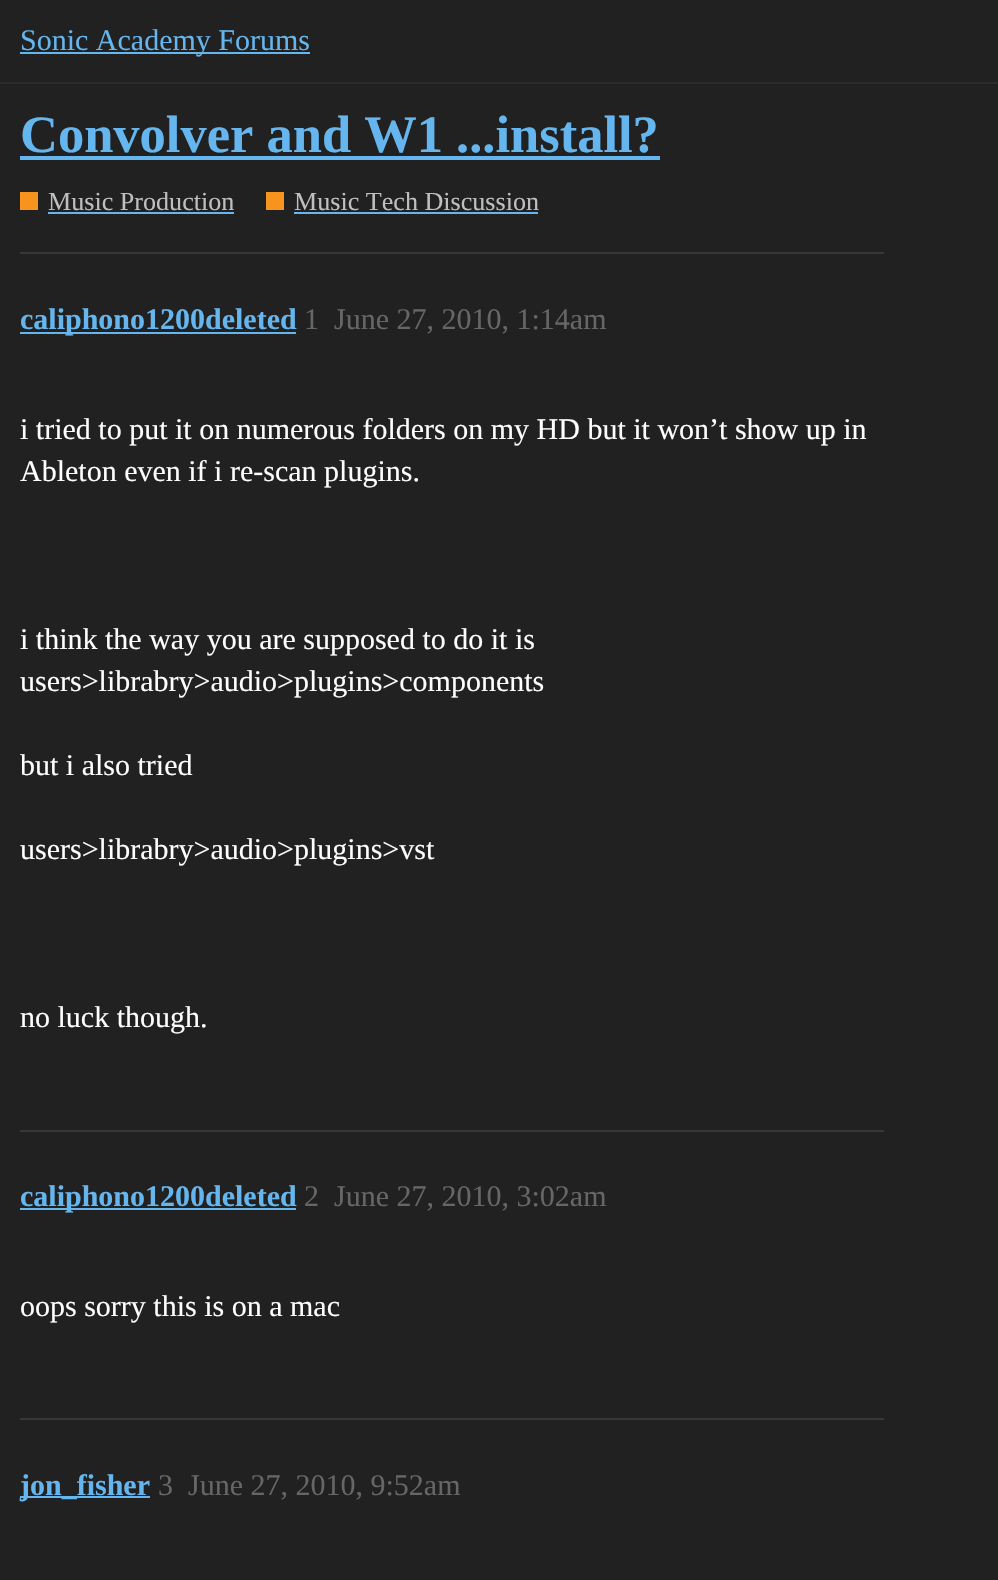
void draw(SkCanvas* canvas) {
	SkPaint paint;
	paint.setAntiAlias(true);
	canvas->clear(0xff212121);
	paint.setColor(0xff2c2c2c);
	canvas->drawRect(SkRect::MakeXYWH(0, 82, 998, 2), paint);
	paint.setColor(0xff65b6ee);
	canvas->drawRect(SkRect::MakeXYWH(20, 52, 290, 2), paint);
	SkFont f1(fontMgr->matchFamilyStyle("Liberation Serif", SkFontStyle::Normal()), 30);
	f1.setSubpixel(true);
	canvas->drawString("Sonic Academy Forums", 20, 50, f1, paint);
	SkFont f2(fontMgr->matchFamilyStyle("Liberation Serif", SkFontStyle::Bold()), 52.5);
	f2.setSubpixel(true);
	canvas->drawString("Convolver and W1 ...install?", 20, 152, f2, paint);
	canvas->drawRect(SkRect::MakeXYWH(20, 156, 640, 4), paint);
	paint.setColor(0xfff7941d);
	canvas->drawRect(SkRect::MakeXYWH(20, 192, 18, 18), paint);
	SkFont f3(fontMgr->matchFamilyStyle("Liberation Serif", SkFontStyle::Normal()), 26.1);
	f3.setSubpixel(true);
	paint.setColor(0xffbfbfbf);
	canvas->drawString("Music Production", 48, 210, f3, paint);
	paint.setColor(0xff65b6ee);
	canvas->drawRect(SkRect::MakeXYWH(48, 212, 186, 2), paint);
	paint.setColor(0xfff7941d);
	canvas->drawRect(SkRect::MakeXYWH(266, 192, 18, 18), paint);
	paint.setColor(0xffbfbfbf);
	canvas->drawString("Music Tech Discussion", 294, 210, f3, paint);
	paint.setColor(0xff65b6ee);
	canvas->drawRect(SkRect::MakeXYWH(294, 212, 244, 2), paint);
	paint.setColor(0xff383838);
	canvas->drawRect(SkRect::MakeXYWH(20, 252, 864, 2), paint);
	paint.setColor(0xff65b6ee);
	canvas->drawRect(SkRect::MakeXYWH(20, 332, 276, 2), paint);
	SkFont f4(fontMgr->matchFamilyStyle("Liberation Serif", SkFontStyle::Bold()), 30);
	f4.setSubpixel(true);
	canvas->drawString("caliphono1200deleted", 20, 329, f4, paint);
	paint.setColor(0xff666666);
	canvas->drawString("1", 304, 329, f1, paint);
	canvas->drawString("June 27, 2010, 1:14am", 334, 329, f1, paint);
	paint.setColor(0xffffffff);
	canvas->drawString("i tried to put it on numerous folders on my HD but it won’t show up in", 20, 439, f1, paint);
	canvas->drawString("Ableton even if i re-scan plugins.", 20, 481, f1, paint);
	canvas->drawString("i think the way you are supposed to do it is", 20, 649, f1, paint);
	canvas->drawString("users>librabry>audio>plugins>components", 20, 691, f1, paint);
	canvas->drawString("but i also tried", 20, 775, f1, paint);
	canvas->drawString("users>librabry>audio>plugins>vst", 20, 859, f1, paint);
	canvas->drawString("no luck though.", 20, 1027, f1, paint);
	paint.setColor(0xff383838);
	canvas->drawRect(SkRect::MakeXYWH(20, 1130, 864, 2), paint);
	paint.setColor(0xff65b6ee);
	canvas->drawRect(SkRect::MakeXYWH(20, 1208, 276, 2), paint);
	canvas->drawString("caliphono1200deleted", 20, 1206, f4, paint);
	paint.setColor(0xff666666);
	canvas->drawString("2", 304, 1206, f1, paint);
	canvas->drawString("June 27, 2010, 3:02am", 334, 1206, f1, paint);
	paint.setColor(0xffffffff);
	canvas->drawString("oops sorry this is on a mac", 20, 1316, f1, paint);
	paint.setColor(0xff383838);
	canvas->drawRect(SkRect::MakeXYWH(20, 1418, 864, 2), paint);
	paint.setColor(0xff65b6ee);
	canvas->drawRect(SkRect::MakeXYWH(20, 1496, 130, 2), paint);
	canvas->drawString("jon_fisher", 20, 1495, f4, paint);
	paint.setColor(0xff666666);
	canvas->drawString("3", 158, 1495, f1, paint);
	canvas->drawString("June 27, 2010, 9:52am", 188, 1495, f1, paint);
}
